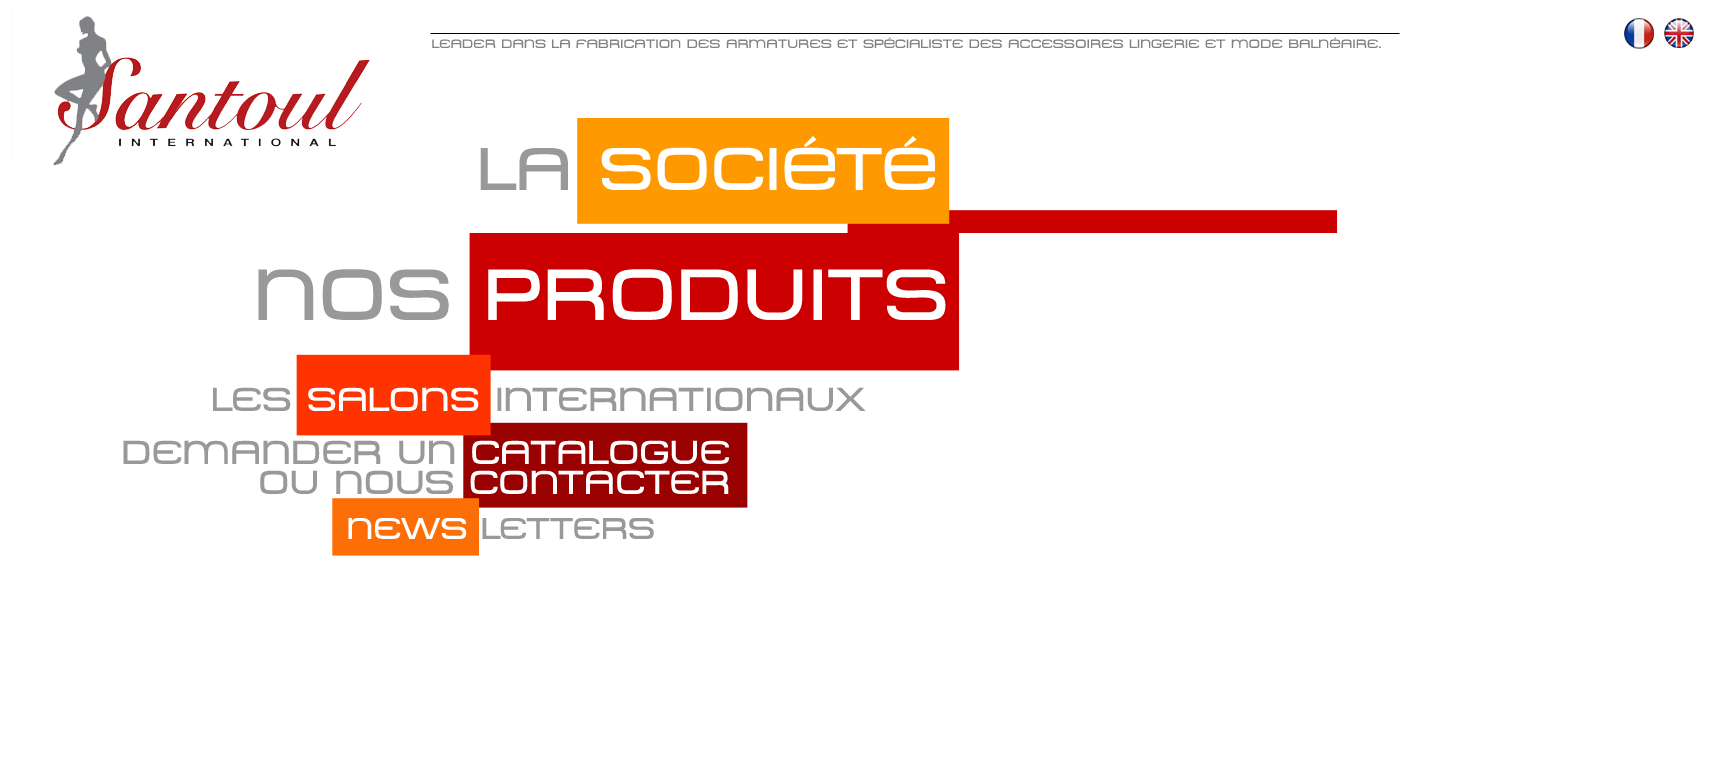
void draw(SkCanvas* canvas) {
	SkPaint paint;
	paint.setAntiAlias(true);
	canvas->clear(0xffffffff);
	canvas->drawImageRect(SkImages::DeferredFromEncodedData(SkData::MakeFromFileName("img1.png")), SkRect::MakeXYWH(11, 8, 359, 158), SkSamplingOptions());
	canvas->drawImageRect(SkImages::DeferredFromEncodedData(SkData::MakeFromFileName("img2.png")), SkRect::MakeXYWH(430, 33, 970, 15), SkSamplingOptions());
	canvas->drawImageRect(SkImages::DeferredFromEncodedData(SkData::MakeFromFileName("img3.png")), SkRect::MakeXYWH(1624, 18, 30, 31), SkSamplingOptions());
	canvas->drawImageRect(SkImages::DeferredFromEncodedData(SkData::MakeFromFileName("img4.png")), SkRect::MakeXYWH(1664, 18, 30, 30), SkSamplingOptions());
	canvas->drawImageRect(SkImages::DeferredFromEncodedData(SkData::MakeFromFileName("img5.png")), SkRect::MakeXYWH(480, 118, 858, 115), SkSamplingOptions());
	canvas->drawImageRect(SkImages::DeferredFromEncodedData(SkData::MakeFromFileName("img6.png")), SkRect::MakeXYWH(258, 233, 702, 116), SkSamplingOptions());
	canvas->drawImageRect(SkImages::DeferredFromEncodedData(SkData::MakeFromFileName("img7.png")), SkRect::MakeXYWH(213, 349, 747, 80), SkSamplingOptions());
	canvas->drawImageRect(SkImages::DeferredFromEncodedData(SkData::MakeFromFileName("img8.png")), SkRect::MakeXYWH(123, 429, 625, 73), SkSamplingOptions());
	canvas->drawImageRect(SkImages::DeferredFromEncodedData(SkData::MakeFromFileName("img9.png")), SkRect::MakeXYWH(332, 502, 416, 54), SkSamplingOptions());
}
